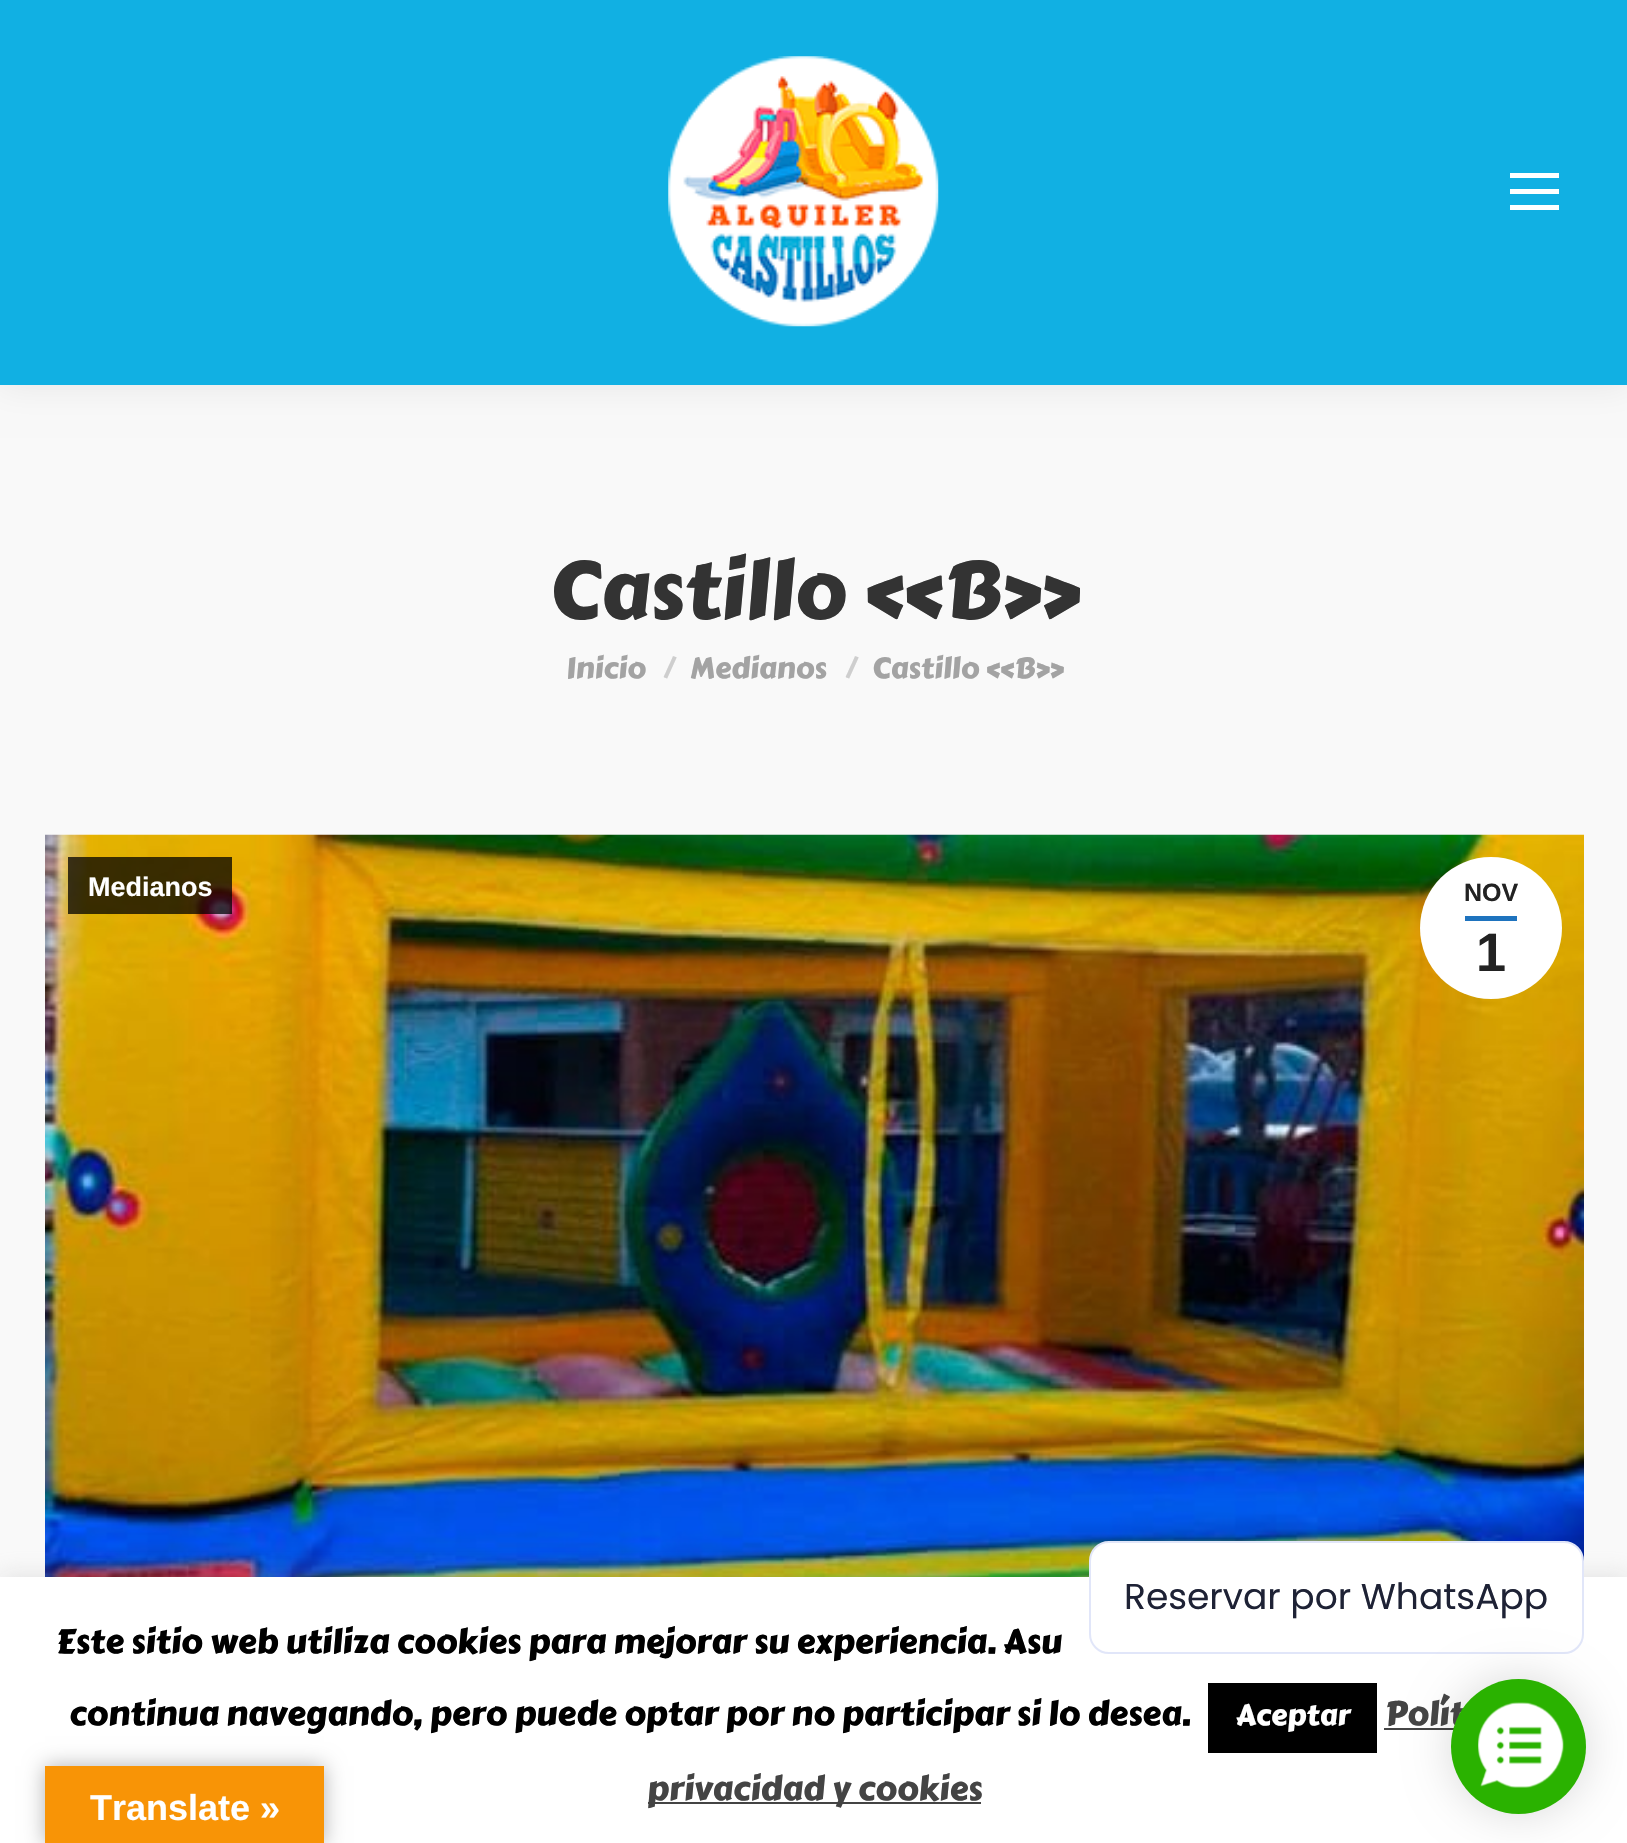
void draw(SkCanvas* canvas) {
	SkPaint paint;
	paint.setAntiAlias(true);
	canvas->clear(0xfff9f9f9);
	paint.setColor(0x12000000);
	paint.setMaskFilter(SkMaskFilter::MakeBlur(kNormal_SkBlurStyle, 17));
	canvas->drawRect(SkRect::MakeXYWH(-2, -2, 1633, 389), paint);
	paint.setMaskFilter(nullptr);
	paint.setColor(0xff11b0e3);
	canvas->drawRect(SkRect::MakeXYWH(0, 0, 1627, 385), paint);
	canvas->drawImageRect(SkImages::DeferredFromEncodedData(SkData::MakeFromFileName("img1.png")), SkRect::MakeXYWH(668, 56, 271, 271), SkSamplingOptions());
	paint.setColor(0xffffffff);
	canvas->drawRect(SkRect::MakeXYWH(1510, 173, 49, 5), paint);
	canvas->drawRect(SkRect::MakeXYWH(1510, 189, 49, 5), paint);
	canvas->drawRect(SkRect::MakeXYWH(1510, 205, 49, 5), paint);
	canvas->save();
	canvas->clipRect(SkRect::MakeXYWH(549, 545, 531, 94));
	SkFont f1(fontMgr->matchFamilyStyle("Carter One", SkFontStyle::Normal()), 81);
	f1.setSubpixel(true);
	paint.setColor(0xff333333);
	canvas->drawString("Castillo «B»", 549, 618, f1, paint);
	canvas->restore();
	SkFont f2(fontMgr->matchFamilyStyle("Carter One", SkFontStyle::Normal()), 29.25);
	f2.setSubpixel(true);
	paint.setColor(0xffa3a3a3);
	canvas->drawString("Inicio", 566, 678, f2, paint);
	paint.setColor(0xffcecece);
	canvas->drawString("/", 663, 678, f2, paint);
	paint.setColor(0xffa3a3a3);
	canvas->drawString("Medianos", 690, 678, f2, paint);
	paint.setColor(0xffcecece);
	canvas->drawString("/", 845, 678, f2, paint);
	paint.setColor(0xffa3a3a3);
	canvas->drawString("Castillo «B»", 872, 678, f2, paint);
	canvas->drawImageRect(SkImages::DeferredFromEncodedData(SkData::MakeFromFileName("img2.png")), SkRect::MakeXYWH(45, 834, 1539, 743), SkSamplingOptions());
	paint.setColor(0xbf000000);
	canvas->drawRect(SkRect::MakeXYWH(68, 857, 164, 57), paint);
	SkFont f3(fontMgr->matchFamilyStyle("Liberation Sans", SkFontStyle::Bold()), 27);
	f3.setSubpixel(true);
	paint.setColor(0xffffffff);
	canvas->drawString("Medianos", 88, 896, f3, paint);
	canvas->drawCircle(1491, 928, 71, paint);
	SkFont f4(fontMgr->matchFamilyStyle("Liberation Sans", SkFontStyle::Bold()), 25);
	f4.setSubpixel(true);
	paint.setColor(0xff222222);
	canvas->drawString("NOV", 1464, 901, f4, paint);
	paint.setColor(0xff1e73be);
	canvas->drawRect(SkRect::MakeXYWH(1465, 916, 52, 5), paint);
	SkFont f5(fontMgr->matchFamilyStyle("Liberation Sans", SkFontStyle::Bold()), 54);
	f5.setSubpixel(true);
	paint.setColor(0xff222222);
	canvas->drawString("1", 1476, 971, f5, paint);
	paint.setColor(0x4dacabab);
	paint.setMaskFilter(SkMaskFilter::MakeBlur(kNormal_SkBlurStyle, 11));
	canvas->drawRect(SkRect::MakeXYWH(0, 1575, 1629, 268), paint);
	paint.setMaskFilter(nullptr);
	paint.setColor(0xffffffff);
	canvas->drawRect(SkRect::MakeXYWH(0, 1577, 1627, 266), paint);
	canvas->drawRoundRect(SkRect::MakeXYWH(1090, 1542, 493, 111), 19, 19, paint);
	paint.setStroke(true);
	paint.setStrokeWidth(2);
	paint.setColor(0xffe1e6f9);
	canvas->drawRoundRect(SkRect::MakeXYWH(1090, 1542, 493, 111), 19, 19, paint);
	SkFont f6(fontMgr->matchFamilyStyle("Poppins", SkFontStyle::Normal()), 36);
	f6.setSubpixel(true);
	paint.setStroke(false);
	paint.setColor(0xff1e2235);
	canvas->drawString("Reservar por WhatsApp", 1124, 1609, f6, paint);
	paint.setColor(0xff444444);
	canvas->drawRect(SkRect::MakeXYWH(1384, 1728, 70, 2), paint);
	paint.setColor(0x26000000);
	paint.setMaskFilter(SkMaskFilter::MakeBlur(kNormal_SkBlurStyle, 22.5));
	canvas->drawRoundRect(SkRect::MakeXYWH(1451, 1679, 135, 135), 67.5, 67.5, paint);
	paint.setMaskFilter(nullptr);
	SkFont f7(fontMgr->matchFamilyStyle("Carter One", SkFontStyle::Normal()), 33.75);
	f7.setSubpixel(true);
	paint.setColor(0xff444444);
	canvas->drawString("Polít", 1385, 1725, f7, paint);
	paint.setColor(0xff2ab200);
	canvas->drawCircle(1518.5, 1746.5, 67.5, paint);
	canvas->drawImageRect(SkImages::DeferredFromEncodedData(SkData::MakeFromFileName("img3.png")), SkRect::MakeXYWH(1478, 1702, 86, 86), SkSamplingOptions());
	paint.setColor(0xff000000);
	canvas->drawString("Este sitio web utiliza cookies para mejorar su experiencia. Asu", 56, 1653, f7, paint);
	canvas->drawString("continua navegando, pero puede optar por no participar si lo desea.", 69, 1725, f7, paint);
	canvas->drawRect(SkRect::MakeXYWH(1208, 1683, 169, 70), paint);
	paint.setColor(0xffffffff);
	canvas->drawString("Aceptar", 1236, 1725, f2, paint);
	paint.setColor(0xff444444);
	canvas->drawRect(SkRect::MakeXYWH(648, 1802, 333, 2), paint);
	canvas->drawString("privacidad y cookies", 647, 1800, f7, paint);
	paint.setColor(0x4d000000);
	paint.setMaskFilter(SkMaskFilter::MakeBlur(kNormal_SkBlurStyle, 10));
	canvas->drawRect(SkRect::MakeXYWH(45, 1766, 279, 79), paint);
	paint.setMaskFilter(nullptr);
	paint.setColor(0xfff89406);
	canvas->drawRect(SkRect::MakeXYWH(45, 1766, 279, 77), paint);
	SkFont f8(fontMgr->matchFamilyStyle("Liberation Sans", SkFontStyle::Bold()), 36);
	f8.setSubpixel(true);
	paint.setColor(0xffffffff);
	canvas->drawString("Translate »", 90, 1820, f8, paint);
}
